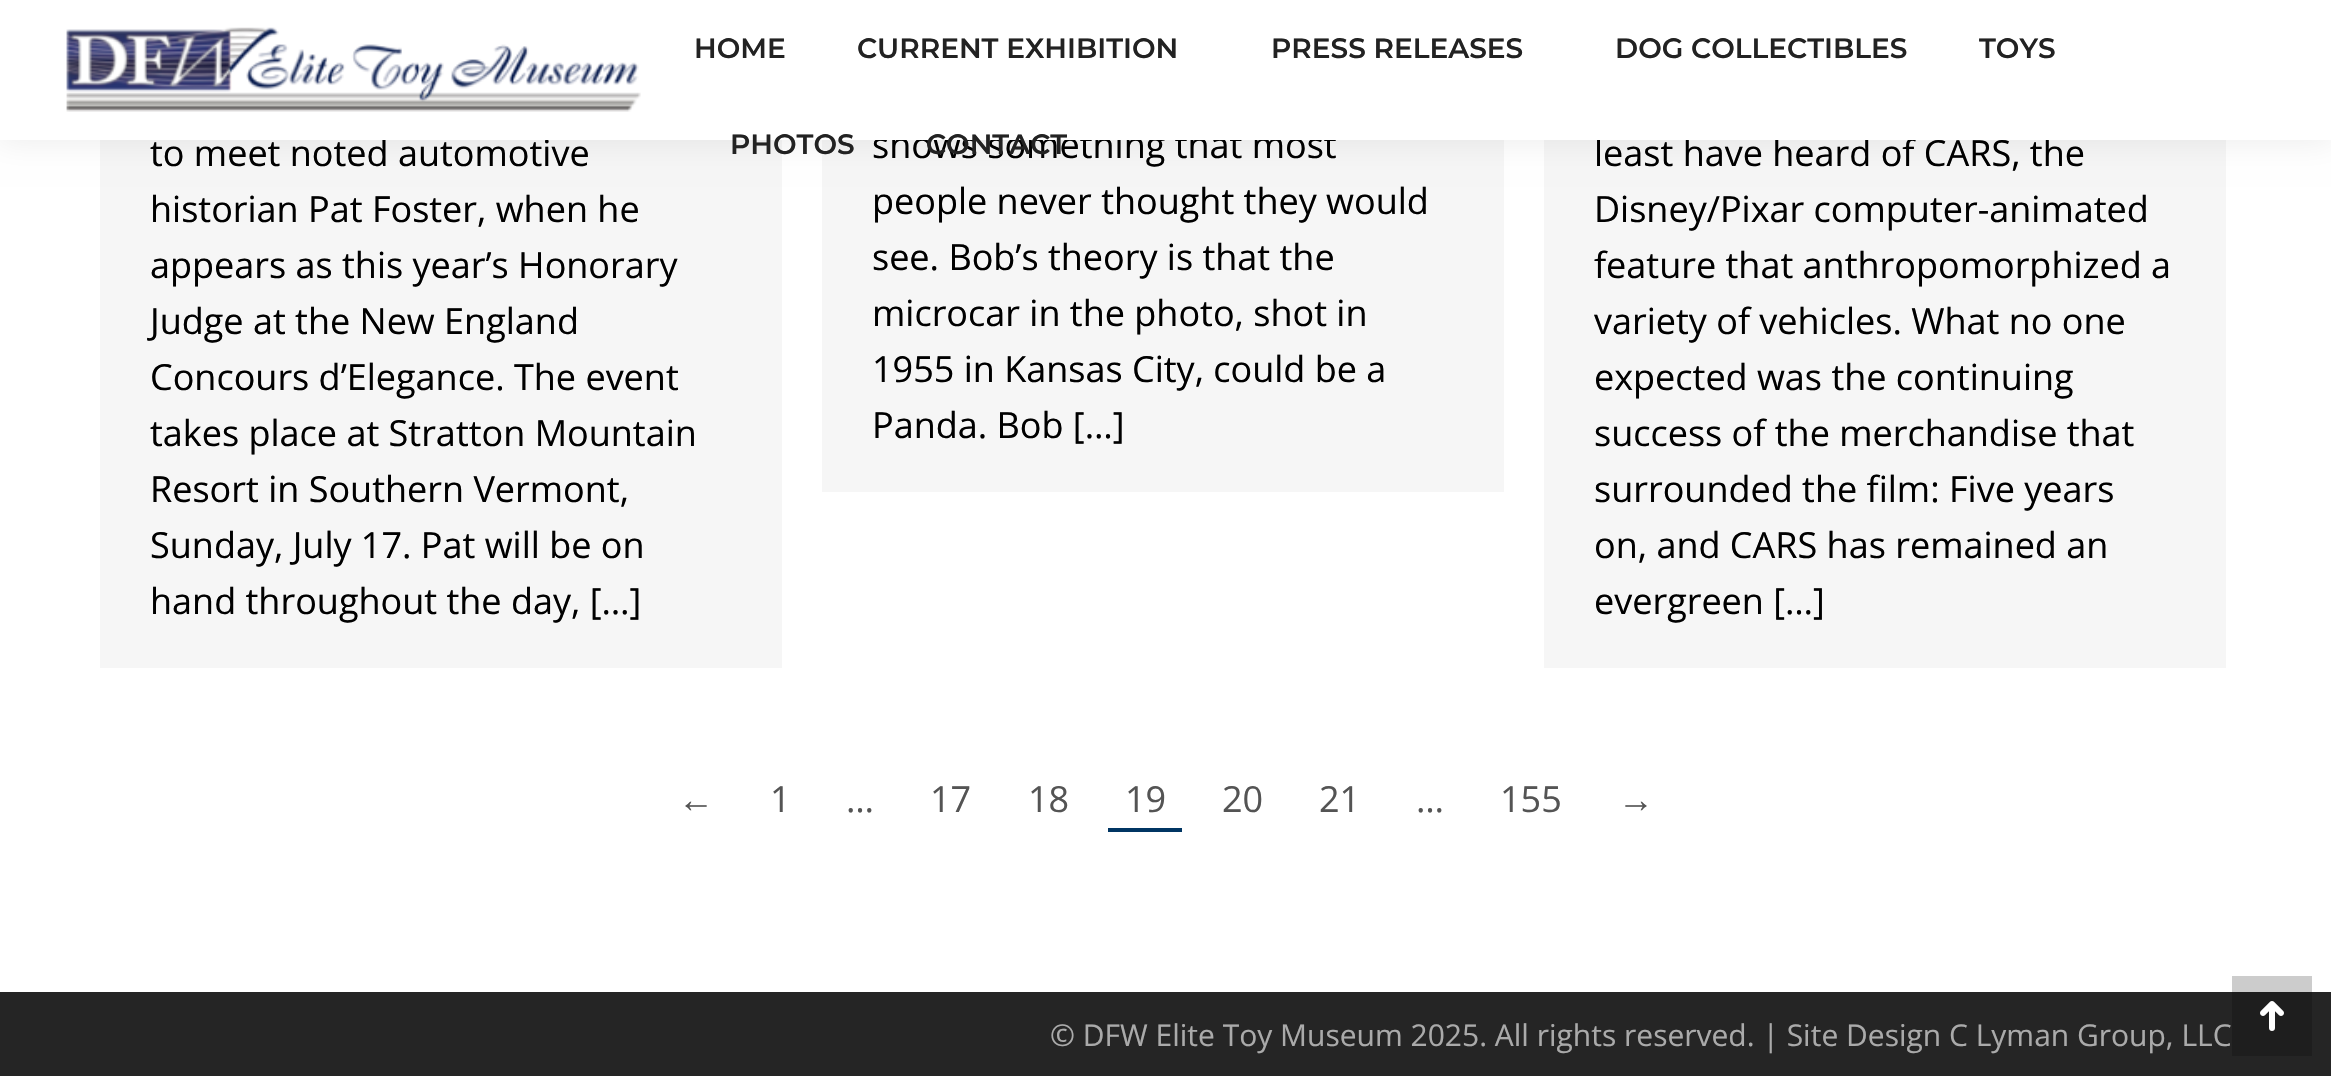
void draw(SkCanvas* canvas) {
	SkPaint paint;
	paint.setAntiAlias(true);
	canvas->clear(0xffffffff);
	paint.setColor(0xffcccccc);
	canvas->drawRect(SkRect::MakeXYWH(2232, 976, 80, 16), paint);
	paint.setColor(0xfff6f6f6);
	canvas->drawRect(SkRect::MakeXYWH(100, 140, 682, 528), paint);
	canvas->drawRect(SkRect::MakeXYWH(822, 140, 682, 352), paint);
	canvas->drawRect(SkRect::MakeXYWH(1544, 140, 682, 528), paint);
	paint.setColor(0x12000000);
	paint.setMaskFilter(SkMaskFilter::MakeBlur(kNormal_SkBlurStyle, 15));
	canvas->drawRect(SkRect::MakeXYWH(-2, -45, 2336, 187), paint);
	paint.setMaskFilter(nullptr);
	SkFont f1(fontMgr->matchFamilyStyle("Open Sans", SkFontStyle::Normal()), 36);
	f1.setSubpixel(true);
	paint.setColor(0xff000000);
	canvas->drawString("to meet noted automotive", 150, 166, f1, paint);
	canvas->drawString("shows something that most", 872, 158, f1, paint);
	canvas->drawString("least have heard of CARS, the", 1594, 166, f1, paint);
	paint.setColor(0xffffffff);
	canvas->drawRect(SkRect::MakeXYWH(0, 0, 2331, 140), paint);
	canvas->drawImageRect(SkImages::DeferredFromEncodedData(SkData::MakeFromFileName("img1.png")), SkRect::MakeXYWH(66, 27, 575, 85), SkSamplingOptions());
	SkFont f2(fontMgr->matchFamilyStyle("Montserrat", SkFontStyle(600, SkFontStyle::kNormal_Width, SkFontStyle::kUpright_Slant)), 28);
	f2.setSubpixel(true);
	paint.setColor(0xff222222);
	canvas->drawString("HOME", 694, 58, f2, paint);
	canvas->drawString("CURRENT EXHIBITION", 857, 58, f2, paint);
	canvas->drawString("PRESS RELEASES", 1271, 58, f2, paint);
	canvas->drawString("DOG COLLECTIBLES", 1615, 58, f2, paint);
	canvas->drawString("TOYS", 1979, 58, f2, paint);
	canvas->drawString("PHOTOS", 730, 154, f2, paint);
	canvas->drawString("CONTACT", 926, 154, f2, paint);
	paint.setColor(0xff000000);
	canvas->drawString("historian Pat Foster, when he", 150, 222, f1, paint);
	canvas->drawString("appears as this year’s Honorary", 150, 278, f1, paint);
	canvas->drawString("Judge at the New England", 150, 334, f1, paint);
	canvas->drawString("Concours d’Elegance. The event", 150, 390, f1, paint);
	canvas->drawString("takes place at Stratton Mountain", 150, 446, f1, paint);
	canvas->drawString("Resort in Southern Vermont,", 150, 502, f1, paint);
	canvas->drawString("Sunday, July 17. Pat will be on", 150, 558, f1, paint);
	canvas->drawString("hand throughout the day, […]", 150, 614, f1, paint);
	canvas->drawString("people never thought they would", 872, 214, f1, paint);
	canvas->drawString("see. Bob’s theory is that the", 872, 270, f1, paint);
	canvas->drawString("microcar in the photo, shot in", 872, 326, f1, paint);
	canvas->drawString("1955 in Kansas City, could be a", 872, 382, f1, paint);
	canvas->drawString("Panda. Bob […]", 872, 438, f1, paint);
	canvas->drawString("Disney/Pixar computer-animated", 1594, 222, f1, paint);
	canvas->drawString("feature that anthropomorphized a", 1594, 278, f1, paint);
	canvas->drawString("variety of vehicles. What no one", 1594, 334, f1, paint);
	canvas->drawString("expected was the continuing", 1594, 390, f1, paint);
	canvas->drawString("success of the merchandise that", 1594, 446, f1, paint);
	canvas->drawString("surrounded the film: Five years", 1594, 502, f1, paint);
	canvas->drawString("on, and CARS has remained an", 1594, 558, f1, paint);
	canvas->drawString("evergreen […]", 1594, 614, f1, paint);
	SkFont f3(fontMgr->matchFamilyStyle("Liberation Sans", SkFontStyle::Normal()), 36);
	f3.setSubpixel(true);
	paint.setColor(0xff545454);
	canvas->drawString("←", 678, 812, f3, paint);
	canvas->drawString("1", 770, 812, f1, paint);
	canvas->drawString("…", 846, 812, f1, paint);
	canvas->drawString("17", 930, 812, f1, paint);
	canvas->drawString("18", 1028, 812, f1, paint);
	canvas->drawString("19", 1125, 812, f1, paint);
	paint.setColor(0xff003563);
	canvas->drawRect(SkRect::MakeXYWH(1108, 828, 74, 4), paint);
	paint.setColor(0xff545454);
	canvas->drawString("20", 1222, 812, f1, paint);
	canvas->drawString("21", 1319, 812, f1, paint);
	canvas->drawString("…", 1416, 812, f1, paint);
	canvas->drawString("155", 1500, 812, f1, paint);
	canvas->drawString("→", 1618, 812, f3, paint);
	paint.setColor(0xff252525);
	canvas->drawRect(SkRect::MakeXYWH(0, 992, 2331, 84), paint);
	paint.setColor(0xff1e1e1e);
	canvas->drawRect(SkRect::MakeXYWH(2232, 992, 80, 64), paint);
	canvas->drawImageRect(SkImages::DeferredFromEncodedData(SkData::MakeFromFileName("img2.png")), SkRect::MakeXYWH(2260, 1001, 24, 30), SkSamplingOptions());
	SkFont f4(fontMgr->matchFamilyStyle("Open Sans", SkFontStyle::Normal()), 30);
	f4.setSubpixel(true);
	paint.setColor(0xffaaaaaa);
	canvas->drawString("© DFW Elite Toy Museum 2025. All rights reserved. | Site Design C Lyman Group, LLC", 1050, 1046, f4, paint);
}
